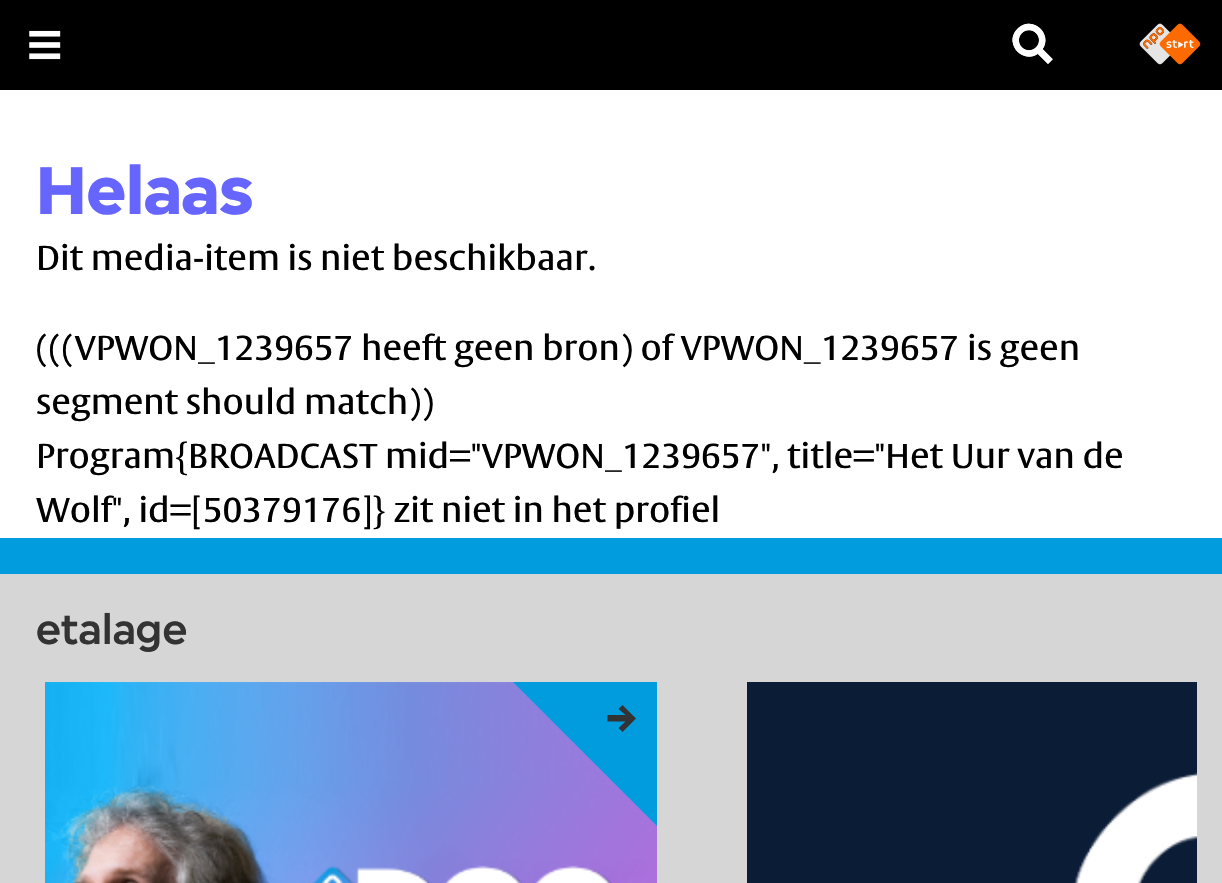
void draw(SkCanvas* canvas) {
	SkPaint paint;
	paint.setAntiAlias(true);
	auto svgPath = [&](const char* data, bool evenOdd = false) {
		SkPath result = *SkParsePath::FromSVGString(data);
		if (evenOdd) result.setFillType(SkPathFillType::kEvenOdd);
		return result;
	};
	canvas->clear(0xffffffff);
	paint.setColor(0xff000000);
	canvas->drawRect(SkRect::MakeXYWH(0, 0, 1222, 90), paint);
	canvas->drawImageRect(SkImages::DeferredFromEncodedData(SkData::MakeFromFileName("img1.png")), SkRect::MakeXYWH(29, 30, 32, 30), SkSamplingOptions());
	canvas->drawImageRect(SkImages::DeferredFromEncodedData(SkData::MakeFromFileName("img2.png")), SkRect::MakeXYWH(1012, 23, 41, 41), SkSamplingOptions());
	canvas->drawImageRect(SkImages::DeferredFromEncodedData(SkData::MakeFromFileName("img3.png")), SkRect::MakeXYWH(1012, 23, 41, 41), SkSamplingOptions());
	canvas->drawImageRect(SkImages::DeferredFromEncodedData(SkData::MakeFromFileName("img4.png")), SkRect::MakeXYWH(1139, 23, 62, 42), SkSamplingOptions());
	SkFont f1(fontMgr->matchFamilyStyle("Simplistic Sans", SkFontStyle::Bold()), 72);
	f1.setSubpixel(true);
	paint.setColor(0xff6666ff);
	canvas->drawString("Helaas", 36, 214, f1, paint);
	SkFont f2(fontMgr->matchFamilyStyle("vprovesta", SkFontStyle::Normal()), 33.75);
	f2.setSubpixel(true);
	paint.setColor(0xff000000);
	canvas->drawString("Dit media-item is niet beschikbaar.", 36, 270, f2, paint);
	canvas->drawString("(((VPWON_1239657 heeft geen bron) of VPWON_1239657 is geen", 36, 360, f2, paint);
	canvas->drawString("segment should match))", 36, 414, f2, paint);
	canvas->drawString("Program{BROADCAST mid=\"VPWON_1239657\", title=\"Het Uur van de", 36, 468, f2, paint);
	canvas->drawString("Wolf\", id=[50379176]} zit niet in het profiel", 36, 522, f2, paint);
	paint.setColor(0xff009cdd);
	canvas->drawRect(SkRect::MakeXYWH(0, 538, 1222, 36), paint);
	paint.setColor(0xffd6d6d6);
	canvas->drawRect(SkRect::MakeXYWH(0, 574, 1222, 309), paint);
	SkFont f3(fontMgr->matchFamilyStyle("Simplistic Sans", SkFontStyle(500, SkFontStyle::kNormal_Width, SkFontStyle::kUpright_Slant)), 45);
	f3.setSubpixel(true);
	paint.setColor(0xff333333);
	canvas->drawString("etalage", 36, 644, f3, paint);
	canvas->drawImageRect(SkImages::DeferredFromEncodedData(SkData::MakeFromFileName("img5.png")), SkRect::MakeXYWH(45, 682, 612, 201), SkSamplingOptions());
	paint.setColor(0xff009cdd);
	canvas->drawPath(svgPath("M657 682V826L513 682Z"), paint);
	paint.setColor(0xff333333);
	canvas->drawPath(svgPath("M625.5 721.5H607.5V715H625.5L618.5 709L622.5 705L636 718.5L622.5 732L618.5 728Z"), paint);
	canvas->drawImageRect(SkImages::DeferredFromEncodedData(SkData::MakeFromFileName("img6.png")), SkRect::MakeXYWH(747, 682, 450, 201), SkSamplingOptions());
}
